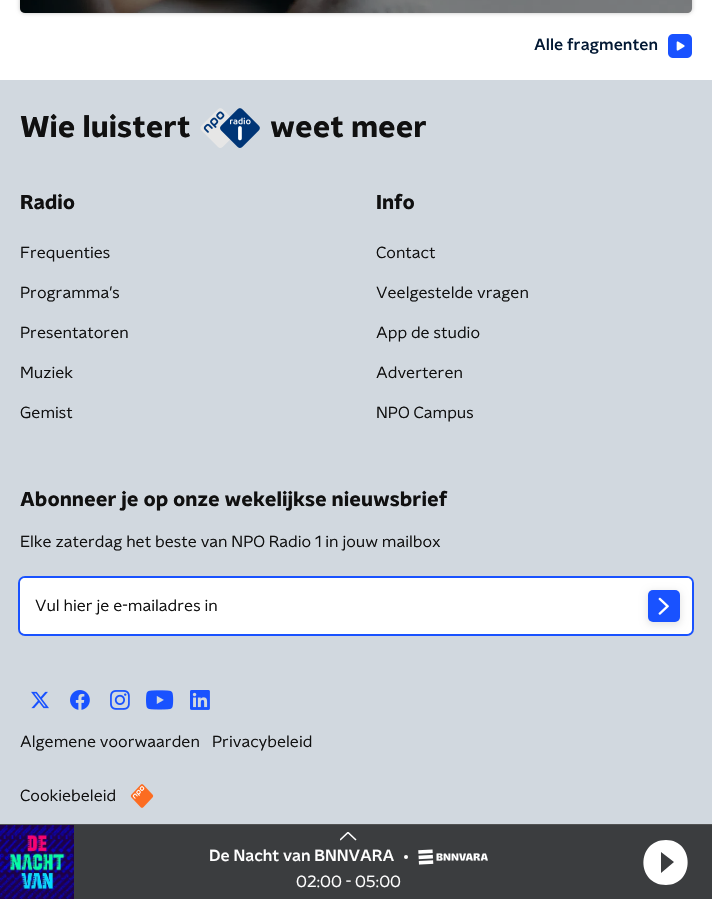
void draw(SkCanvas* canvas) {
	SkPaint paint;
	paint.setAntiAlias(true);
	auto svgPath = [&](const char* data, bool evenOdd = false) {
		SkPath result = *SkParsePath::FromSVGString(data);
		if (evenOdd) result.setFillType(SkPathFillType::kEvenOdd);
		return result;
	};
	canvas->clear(0xffd1d8df);
	paint.setColor(0xffffffff);
	canvas->drawRect(SkRect::MakeXYWH(0, 0, 712, 80), paint);
	paint.setColor(0x40000000);
	paint.setMaskFilter(SkMaskFilter::MakeBlur(kNormal_SkBlurStyle, 2));
	canvas->drawRoundRect(SkRect::MakeXYWH(20, -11, 672, 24), 5, 5, paint);
	paint.setMaskFilter(nullptr);
	canvas->drawImageRect(SkImages::DeferredFromEncodedData(SkData::MakeFromFileName("img1.png")), SkRect::MakeXYWH(20, 0, 672, 13), SkSamplingOptions());
	paint.setColor(0x66000000);
	canvas->drawPath(svgPath("M20-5H692V8C692 11 690 13 687 13H25C22 13 20 11 20 8Z"), paint);
	SkFont f1(fontMgr->matchFamilyStyle("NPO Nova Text", SkFontStyle(500, SkFontStyle::kNormal_Width, SkFontStyle::kUpright_Slant)), 16);
	f1.setSubpixel(true);
	paint.setColor(0xff021833);
	canvas->drawString("Alle fragmenten", 534, 50, f1, paint);
	canvas->drawImageRect(SkImages::DeferredFromEncodedData(SkData::MakeFromFileName("img2.png")), SkRect::MakeXYWH(668, 34, 24, 24), SkSamplingOptions());
	SkFont f2(fontMgr->matchFamilyStyle("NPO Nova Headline", SkFontStyle::Bold()), 30);
	f2.setSubpixel(true);
	paint.setColor(0xff101010);
	canvas->drawString("Wie luistert", 20, 137, f2, paint);
	canvas->drawImageRect(SkImages::DeferredFromEncodedData(SkData::MakeFromFileName("img3.png")), SkRect::MakeXYWH(200, 108, 60, 40), SkSamplingOptions());
	canvas->drawString("weet meer", 270, 137, f2, paint);
	SkFont f3(fontMgr->matchFamilyStyle("NPO Nova Headline", SkFontStyle::Bold()), 20);
	f3.setSubpixel(true);
	canvas->drawString("Radio", 20, 209, f3, paint);
	SkFont f4(fontMgr->matchFamilyStyle("NPO Nova Text", SkFontStyle::Normal()), 16);
	f4.setSubpixel(true);
	canvas->drawString("Frequenties", 20, 258, f4, paint);
	canvas->drawString("Programma's", 20, 298, f4, paint);
	canvas->drawString("Presentatoren", 20, 338, f4, paint);
	canvas->drawString("Muziek", 20, 378, f4, paint);
	canvas->drawString("Gemist", 20, 418, f4, paint);
	canvas->drawString("Info", 376, 209, f3, paint);
	canvas->drawString("Contact", 376, 258, f4, paint);
	canvas->drawString("Veelgestelde vragen", 376, 298, f4, paint);
	canvas->drawString("App de studio", 376, 338, f4, paint);
	canvas->drawString("Adverteren", 376, 378, f4, paint);
	canvas->drawString("NPO Campus", 376, 418, f4, paint);
	canvas->drawString("Abonneer je op onze wekelijkse nieuwsbrief", 20, 506, f3, paint);
	canvas->drawString("Elke zaterdag het beste van NPO Radio 1 in jouw mailbox", 20, 547, f4, paint);
	paint.setStroke(true);
	paint.setStrokeWidth(2);
	paint.setColor(0xff1952ff);
	canvas->drawRoundRect(SkRect::MakeXYWH(19, 577, 674, 58), 6, 6, paint);
	paint.setStroke(false);
	paint.setColor(0xffffffff);
	canvas->drawRoundRect(SkRect::MakeXYWH(20, 578, 672, 56), 5, 5, paint);
	paint.setColor(0xff101010);
	canvas->drawString("Vul hier je e-mailadres in", 35, 611, f4, paint);
	paint.setColor(0x1a000000);
	paint.setMaskFilter(SkMaskFilter::MakeBlur(kNormal_SkBlurStyle, 3.5));
	canvas->drawRoundRect(SkRect::MakeXYWH(647, 591, 34, 34), 6, 6, paint);
	paint.setMaskFilter(nullptr);
	paint.setColor(0xff1952ff);
	canvas->drawRoundRect(SkRect::MakeXYWH(648, 590, 32, 32), 5, 5, paint);
	canvas->drawImageRect(SkImages::DeferredFromEncodedData(SkData::MakeFromFileName("img4.png")), SkRect::MakeXYWH(658, 597, 11, 18), SkSamplingOptions());
	canvas->drawImageRect(SkImages::DeferredFromEncodedData(SkData::MakeFromFileName("img5.png")), SkRect::MakeXYWH(31, 691, 18, 18), SkSamplingOptions());
	canvas->drawImageRect(SkImages::DeferredFromEncodedData(SkData::MakeFromFileName("img6.png")), SkRect::MakeXYWH(70, 690, 20, 20), SkSamplingOptions());
	canvas->drawImageRect(SkImages::DeferredFromEncodedData(SkData::MakeFromFileName("img7.png")), SkRect::MakeXYWH(110, 690, 20, 20), SkSamplingOptions());
	canvas->drawImageRect(SkImages::DeferredFromEncodedData(SkData::MakeFromFileName("img8.png")), SkRect::MakeXYWH(146, 690, 28, 20), SkSamplingOptions());
	canvas->drawImageRect(SkImages::DeferredFromEncodedData(SkData::MakeFromFileName("img9.png")), SkRect::MakeXYWH(190, 690, 20, 20), SkSamplingOptions());
	paint.setColor(0xff101010);
	canvas->drawString("Algemene voorwaarden", 20, 747, f4, paint);
	canvas->drawString("Privacybeleid", 212, 747, f4, paint);
	canvas->drawString("Cookiebeleid", 20, 801, f4, paint);
	canvas->drawImageRect(SkImages::DeferredFromEncodedData(SkData::MakeFromFileName("img10.png")), SkRect::MakeXYWH(130, 784, 24, 24), SkSamplingOptions());
	paint.setColor(0xff3b3d3f);
	canvas->drawRect(SkRect::MakeXYWH(74, 825, 638, 74), paint);
	paint.setColor(0xff525354);
	canvas->drawRect(SkRect::MakeXYWH(0, 824, 712, 1), paint);
	canvas->drawImageRect(SkImages::DeferredFromEncodedData(SkData::MakeFromFileName("img11.png")), SkRect::MakeXYWH(0, 825, 74, 74), SkSamplingOptions());
	canvas->save();
	canvas->clipRect(SkRect::MakeXYWH(340, 832, 18, 9));
	paint.setStroke(true);
	paint.setStrokeWidth(1.6);
	paint.setColor(0xffffffff);
	canvas->drawPath(svgPath("M356 840L348 832.5L340 840"), paint);
	canvas->restore();
	paint.setStroke(false);
	canvas->drawString("De Nacht van BNNVARA", 209, 861, f1, paint);
	canvas->drawCircle(406, 857, 2, paint);
	canvas->drawImageRect(SkImages::DeferredFromEncodedData(SkData::MakeFromFileName("img12.png")), SkRect::MakeXYWH(418, 849, 70, 16), SkSamplingOptions());
	canvas->drawString("02:00 - 05:00", 296, 887, f4, paint);
	canvas->drawPath(svgPath("M666 840C636 840 636 885 666 885C695 885 695 840 666 840ZM661 873V852L674 862Z"), paint);
}
